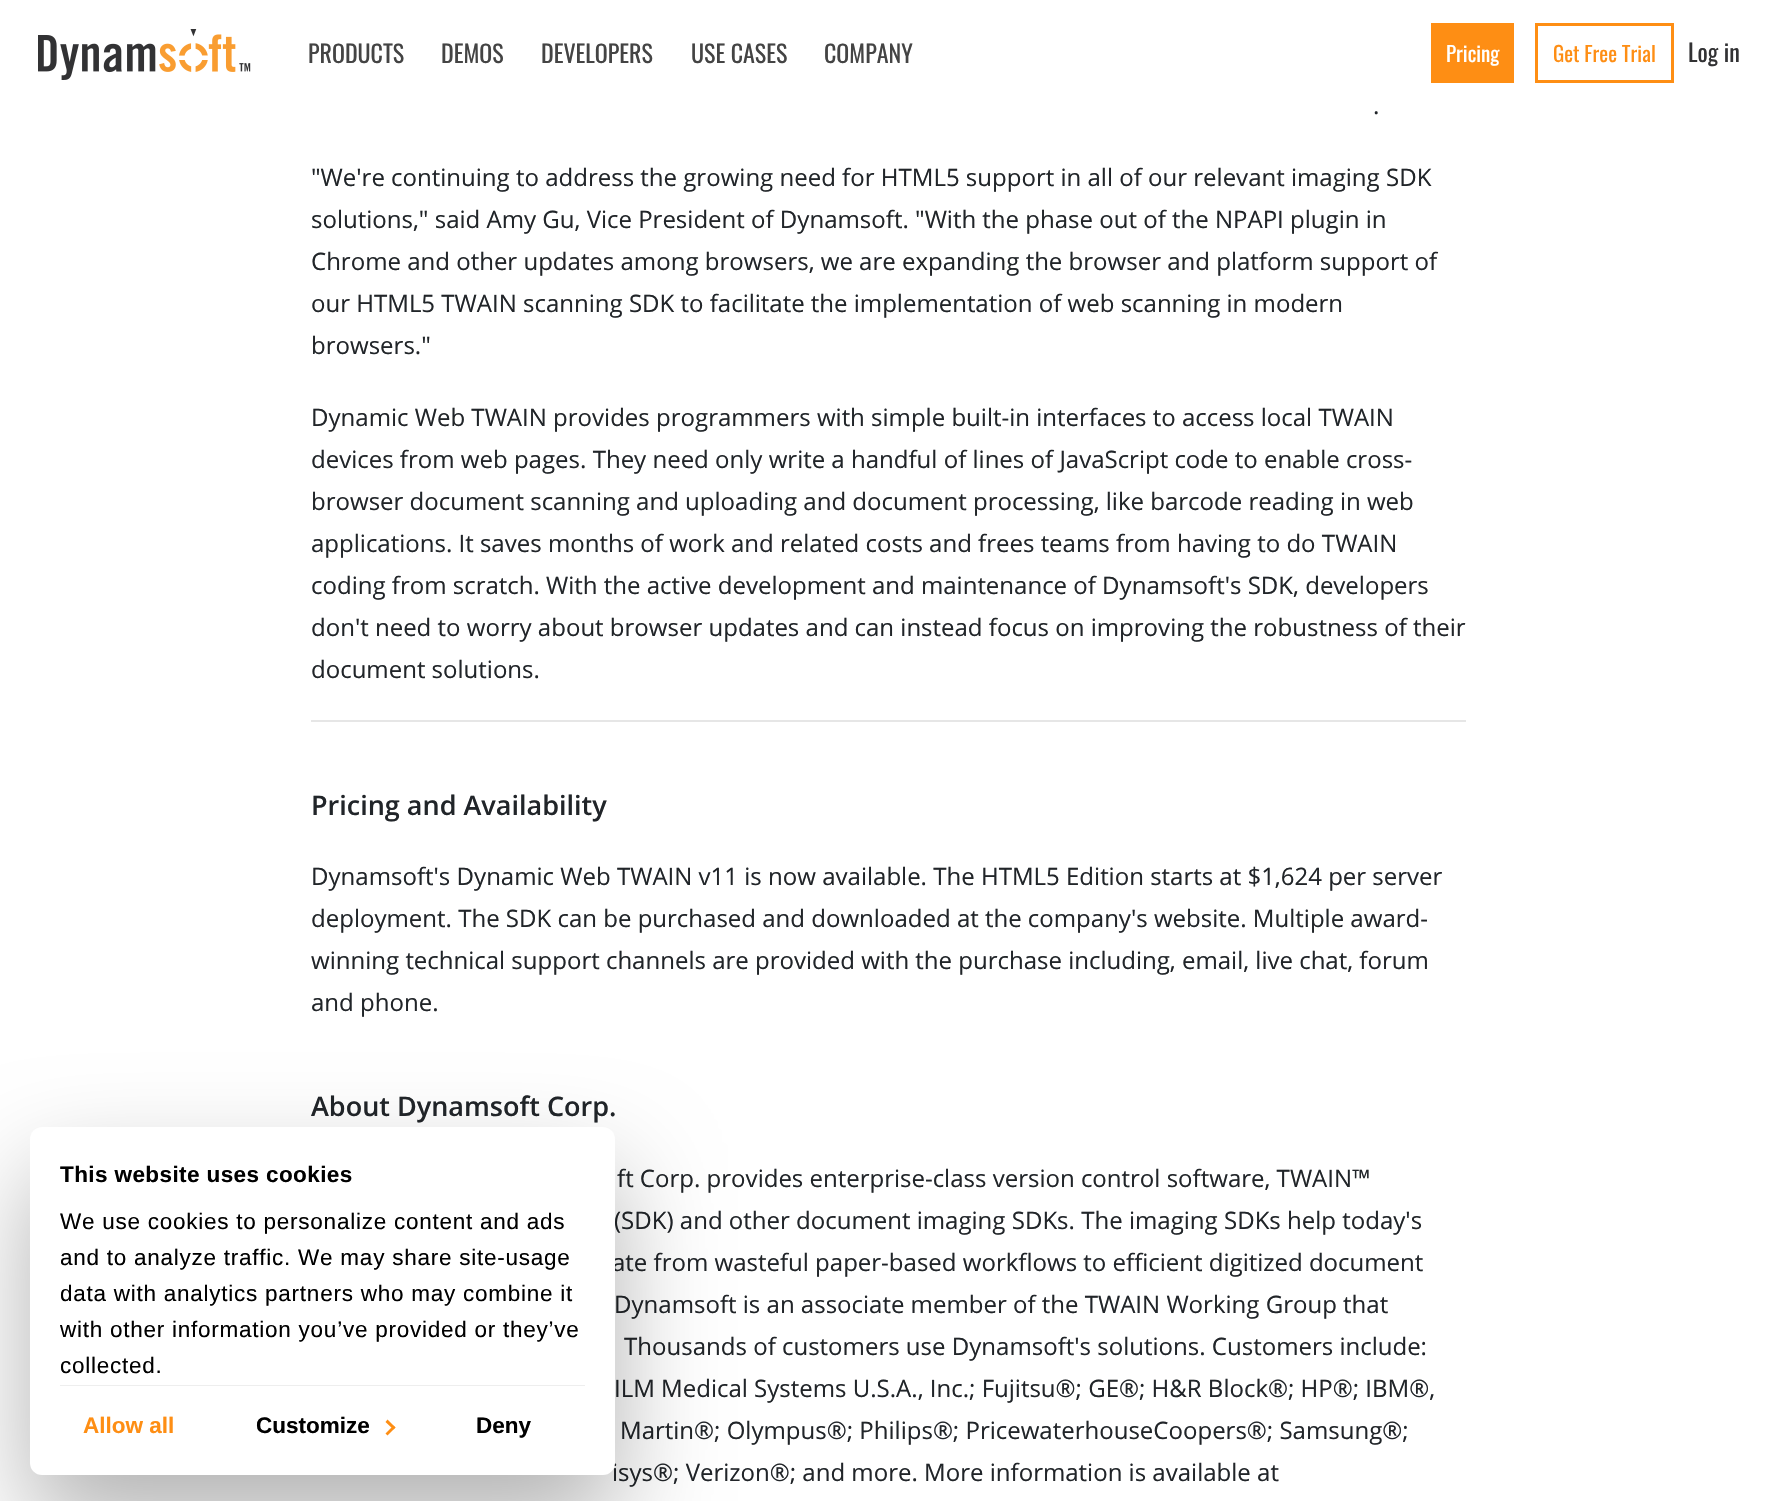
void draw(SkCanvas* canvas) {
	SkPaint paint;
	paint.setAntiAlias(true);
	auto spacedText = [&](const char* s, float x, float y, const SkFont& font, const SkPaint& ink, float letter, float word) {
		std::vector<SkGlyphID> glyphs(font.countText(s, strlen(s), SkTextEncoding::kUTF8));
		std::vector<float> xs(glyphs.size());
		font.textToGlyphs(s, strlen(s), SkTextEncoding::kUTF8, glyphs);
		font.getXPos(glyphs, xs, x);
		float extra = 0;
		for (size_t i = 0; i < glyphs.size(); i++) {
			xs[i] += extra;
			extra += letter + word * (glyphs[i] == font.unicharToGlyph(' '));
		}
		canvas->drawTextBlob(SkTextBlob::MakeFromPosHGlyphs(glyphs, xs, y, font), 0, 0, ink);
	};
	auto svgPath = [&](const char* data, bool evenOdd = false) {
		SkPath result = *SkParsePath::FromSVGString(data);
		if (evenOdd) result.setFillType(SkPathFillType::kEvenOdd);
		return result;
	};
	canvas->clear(0xffffffff);
	canvas->drawImageRect(SkImages::DeferredFromEncodedData(SkData::MakeFromFileName("img1.png")), SkRect::MakeXYWH(38, 29, 213, 51), SkSamplingOptions());
	SkFont f1(fontMgr->matchFamilyStyle("Oswald", SkFontStyle::Normal()), 24);
	f1.setSubpixel(true);
	paint.setColor(0xff444444);
	canvas->drawString("PRODUCTS", 308, 63, f1, paint);
	canvas->drawString("DEMOS", 441, 63, f1, paint);
	canvas->drawString("DEVELOPERS", 541, 63, f1, paint);
	canvas->drawString("USE CASES", 691, 63, f1, paint);
	canvas->drawString("COMPANY", 824, 63, f1, paint);
	paint.setColor(0xfffe8e14);
	canvas->drawRect(SkRect::MakeXYWH(1431, 23, 83, 60), paint);
	SkFont f2(fontMgr->matchFamilyStyle("Oswald", SkFontStyle::Normal()), 21);
	f2.setSubpixel(true);
	paint.setColor(0xffffffff);
	canvas->drawString("Pricing", 1446, 62, f2, paint);
	paint.setStroke(true);
	paint.setStrokeWidth(3);
	paint.setColor(0xfffe8e14);
	canvas->drawRect(SkRect::MakeXYWH(1536.5, 24.5, 136, 57), paint);
	paint.setStroke(false);
	canvas->drawString("Get Free Trial", 1553, 62, f2, paint);
	paint.setColor(0xff323234);
	canvas->drawString("Log in", 1688, 62, f1, paint);
	SkFont f3(fontMgr->matchFamilyStyle("Open Sans", SkFontStyle::Normal()), 24);
	f3.setSubpixel(true);
	paint.setColor(0xff212529);
	canvas->drawString(".", 1373, 114, f3, paint);
	canvas->drawString("\"We're continuing to address the growing need for HTML5 support in all of our relevant imaging SDK", 311, 186, f3, paint);
	canvas->drawString("solutions,\" said Amy Gu, Vice President of Dynamsoft. \"With the phase out of the NPAPI plugin in", 311, 228, f3, paint);
	canvas->drawString("Chrome and other updates among browsers, we are expanding the browser and platform support of", 311, 270, f3, paint);
	canvas->drawString("our HTML5 TWAIN scanning SDK to facilitate the implementation of web scanning in modern", 311, 312, f3, paint);
	canvas->drawString("browsers.\"", 311, 354, f3, paint);
	canvas->drawString("Dynamic Web TWAIN provides programmers with simple built-in interfaces to access local TWAIN", 311, 426, f3, paint);
	canvas->drawString("devices from web pages. They need only write a handful of lines of JavaScript code to enable cross-", 311, 468, f3, paint);
	canvas->drawString("browser document scanning and uploading and document processing, like barcode reading in web", 311, 510, f3, paint);
	canvas->drawString("applications. It saves months of work and related costs and frees teams from having to do TWAIN", 311, 552, f3, paint);
	canvas->drawString("coding from scratch. With the active development and maintenance of Dynamsoft's SDK, developers", 311, 594, f3, paint);
	canvas->drawString("don't need to worry about browser updates and can instead focus on improving the robustness of their", 311, 636, f3, paint);
	canvas->drawString("document solutions.", 311, 678, f3, paint);
	paint.setColor(0xffe6e6e6);
	canvas->drawRect(SkRect::MakeXYWH(311, 720, 1155, 2), paint);
	SkFont f4(fontMgr->matchFamilyStyle("Open Sans", SkFontStyle(600, SkFontStyle::kNormal_Width, SkFontStyle::kUpright_Slant)), 27);
	f4.setSubpixel(true);
	paint.setColor(0xff212529);
	canvas->drawString("Pricing and Availability", 311, 815, f4, paint);
	canvas->drawString("Dynamsoft's Dynamic Web TWAIN v11 is now available. The HTML5 Edition starts at $1,624 per server", 311, 885, f3, paint);
	canvas->drawString("deployment. The SDK can be purchased and downloaded at the company's website. Multiple award-", 311, 927, f3, paint);
	canvas->drawString("winning technical support channels are provided with the purchase including, email, live chat, forum", 311, 969, f3, paint);
	canvas->drawString("and phone.", 311, 1011, f3, paint);
	canvas->drawString("About Dynamsoft Corp.", 311, 1116, f4, paint);
	canvas->drawString("ft Corp. provides enterprise-class version control software, TWAIN™", 617, 1187, f3, paint);
	canvas->drawString("(SDK) and other document imaging SDKs. The imaging SDKs help today's", 614, 1229, f3, paint);
	canvas->drawString("ate from wasteful paper-based workflows to efficient digitized document", 612, 1271, f3, paint);
	canvas->drawString("Dynamsoft is an associate member of the TWAIN Working Group that", 614, 1313, f3, paint);
	canvas->drawString("Thousands of customers use Dynamsoft's solutions. Customers include:", 624, 1355, f3, paint);
	canvas->drawString("ILM Medical Systems U.S.A., Inc.; Fujitsu®; GE®; H&R Block®; HP®; IBM®,", 614, 1397, f3, paint);
	canvas->drawString("Martin®; Olympus®; Philips®; PricewaterhouseCoopers®; Samsung®;", 620, 1439, f3, paint);
	canvas->drawString("isys®; Verizon®; and more. More information is available at", 612, 1481, f3, paint);
	paint.setColor(0x4d000000);
	paint.setMaskFilter(SkMaskFilter::MakeBlur(kNormal_SkBlurStyle, 51));
	canvas->drawRoundRect(SkRect::MakeXYWH(30, 1175, 585, 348), 12, 12, paint);
	paint.setMaskFilter(nullptr);
	paint.setColor(0xffffffff);
	canvas->drawRoundRect(SkRect::MakeXYWH(30, 1127, 585, 348), 12, 12, paint);
	paint.setColor(0xffeeeeee);
	canvas->drawRect(SkRect::MakeXYWH(60, 1385, 525, 1), paint);
	SkFont f5(fontMgr->matchFamilyStyle("Liberation Sans", SkFontStyle::Bold()), 22.5);
	f5.setSubpixel(true);
	paint.setColor(0xff000000);
	spacedText("This website uses cookies", 60, 1182, f5, paint, 0.4, 0);
	SkFont f6(fontMgr->matchFamilyStyle("Liberation Sans", SkFontStyle::Normal()), 22.5);
	f6.setSubpixel(true);
	spacedText("We use cookies to personalize content and ads", 60, 1229, f6, paint, 0.75, 0);
	spacedText("and to analyze traffic. We may share site-usage", 60, 1265, f6, paint, 0.75, 0);
	spacedText("data with analytics partners who may combine it", 60, 1301, f6, paint, 0.75, 0);
	spacedText("with other information you’ve provided or they’ve", 60, 1337, f6, paint, 0.75, 0);
	spacedText("collected.", 60, 1373, f6, paint, 0.75, 0);
	paint.setColor(0xfffe8e14);
	canvas->drawString("Allow all", 83, 1433, f5, paint);
	paint.setColor(0xff000000);
	canvas->drawString("Customize", 256, 1433, f5, paint);
	paint.setColor(0xfffe8e14);
	canvas->drawPath(svgPath("M387.5 1419.5L395.5 1427.5L393.5 1429.5L385.5 1422Z"), paint);
	canvas->drawPath(svgPath("M393.5 1425.5L395.5 1427.5L387.5 1435.5L385.5 1433.5Z"), paint);
	paint.setColor(0xff000000);
	canvas->drawString("Deny", 476, 1433, f5, paint);
}
